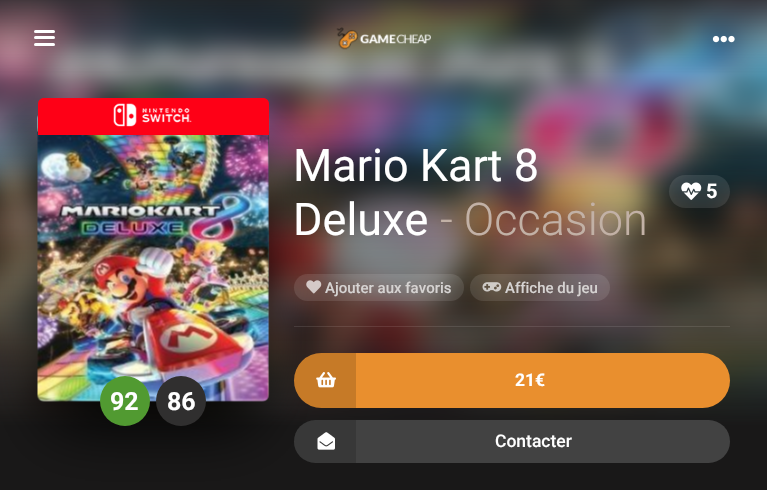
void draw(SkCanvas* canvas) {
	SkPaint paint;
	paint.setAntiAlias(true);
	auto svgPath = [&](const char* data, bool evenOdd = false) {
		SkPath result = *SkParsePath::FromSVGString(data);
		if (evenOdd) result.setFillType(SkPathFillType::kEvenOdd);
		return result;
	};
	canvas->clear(0xffffffff);
	canvas->drawImageRect(SkImages::DeferredFromEncodedData(SkData::MakeFromFileName("img1.png")), SkRect::MakeXYWH(0, 0, 767, 490), SkSamplingOptions());
	paint.setColor(0xffffffff);
	canvas->drawRoundRect(SkRect::MakeXYWH(34, 30, 21, 3), 1.5, 1.5, paint);
	canvas->drawRoundRect(SkRect::MakeXYWH(34, 36, 21, 3), 1.5, 1.5, paint);
	canvas->drawRoundRect(SkRect::MakeXYWH(34, 43, 21, 3), 1.5, 1.5, paint);
	canvas->drawImageRect(SkImages::DeferredFromEncodedData(SkData::MakeFromFileName("img2.png")), SkRect::MakeXYWH(336, 27, 95, 23), SkSamplingOptions());
	canvas->drawImageRect(SkImages::DeferredFromEncodedData(SkData::MakeFromFileName("img3.png")), SkRect::MakeXYWH(712, 35, 23, 8), SkSamplingOptions());
	paint.setColor(0xff000000);
	paint.setMaskFilter(SkMaskFilter::MakeBlur(kNormal_SkBlurStyle, 31));
	canvas->drawRect(SkRect::MakeXYWH(50, 163, 206, 263), paint);
	paint.setMaskFilter(nullptr);
	paint.setColor(0xff383838);
	canvas->drawRoundRect(SkRect::MakeXYWH(38, 113, 231, 288), 6, 6, paint);
	canvas->drawImageRect(SkImages::DeferredFromEncodedData(SkData::MakeFromFileName("img5.png")), SkRect::MakeXYWH(37, 115, 233, 287), SkSamplingOptions());
	paint.setColor(0xfffe0016);
	canvas->drawPath(svgPath("M44 98H263C266.5 98 269 100.5 269 104V135H38V104C38 100.5 40.5 98 44 98Z"), paint);
	canvas->drawImageRect(SkImages::DeferredFromEncodedData(SkData::MakeFromFileName("img4.png")), SkRect::MakeXYWH(113, 103, 79, 24), SkSamplingOptions());
	paint.setColor(0xff519a31);
	canvas->drawCircle(125, 401, 25, paint);
	SkFont f1(fontMgr->matchFamilyStyle("Roboto", SkFontStyle::Bold()), 25);
	f1.setSubpixel(true);
	paint.setColor(0xffffffff);
	canvas->drawString("92", 110, 410, f1, paint);
	paint.setColor(0xff302f2f);
	canvas->drawCircle(181, 401, 25, paint);
	paint.setColor(0xffffffff);
	canvas->drawString("86", 167, 410, f1, paint);
	SkFont f2(fontMgr->matchFamilyStyle("Roboto", SkFontStyle::Normal()), 45);
	f2.setSubpixel(true);
	canvas->drawString("Mario Kart 8", 293, 181, f2, paint);
	canvas->drawString("Deluxe", 293, 235, f2, paint);
	SkFont f3(fontMgr->matchFamilyStyle("Roboto", SkFontStyle(300, SkFontStyle::kNormal_Width, SkFontStyle::kUpright_Slant)), 45);
	f3.setSubpixel(true);
	paint.setColor(0xffc2b1a6);
	canvas->drawString("- Occasion", 440, 235, f3, paint);
	paint.setColor(0x1affffff);
	canvas->drawRoundRect(SkRect::MakeXYWH(669, 175, 61, 33), 16.5, 16.5, paint);
	canvas->drawImageRect(SkImages::DeferredFromEncodedData(SkData::MakeFromFileName("img6.png")), SkRect::MakeXYWH(681, 182, 21, 18), SkSamplingOptions());
	SkFont f4(fontMgr->matchFamilyStyle("Roboto", SkFontStyle::Bold()), 20);
	f4.setSubpixel(true);
	paint.setColor(0xffffffff);
	canvas->drawString("5", 706, 198, f4, paint);
	paint.setColor(0x1affffff);
	canvas->drawRect(SkRect::MakeXYWH(294, 326, 436, 1), paint);
	canvas->drawRoundRect(SkRect::MakeXYWH(294, 274, 170, 27), 13.5, 13.5, paint);
	canvas->drawImageRect(SkImages::DeferredFromEncodedData(SkData::MakeFromFileName("img7.png")), SkRect::MakeXYWH(306, 280, 16, 14), SkSamplingOptions());
	SkFont f5(fontMgr->matchFamilyStyle("Roboto", SkFontStyle(500, SkFontStyle::kNormal_Width, SkFontStyle::kUpright_Slant)), 15);
	f5.setSubpixel(true);
	paint.setColor(0xffd6d3d2);
	canvas->drawString("Ajouter aux favoris", 325, 293, f5, paint);
	paint.setColor(0x1affffff);
	canvas->drawRoundRect(SkRect::MakeXYWH(470, 274, 140, 27), 13.5, 13.5, paint);
	canvas->drawImageRect(SkImages::DeferredFromEncodedData(SkData::MakeFromFileName("img8.png")), SkRect::MakeXYWH(482, 282, 20, 10), SkSamplingOptions());
	paint.setColor(0xffd6d3d2);
	canvas->drawString("Affiche du jeu", 505, 293, f5, paint);
	paint.setColor(0xffe98f2e);
	canvas->drawRoundRect(SkRect::MakeXYWH(294, 353, 436, 55), 27.5, 27.5, paint);
	paint.setColor(0x26000000);
	canvas->drawPath(svgPath("M321.5 353H356V408H321.5C306.5 408 294 395.5 294 380.5C294 365.5 306.5 353 321.5 353Z"), paint);
	canvas->drawImageRect(SkImages::DeferredFromEncodedData(SkData::MakeFromFileName("img9.png")), SkRect::MakeXYWH(316, 372, 20, 16), SkSamplingOptions());
	SkFont f6(fontMgr->matchFamilyStyle("Roboto", SkFontStyle::Bold()), 17.5);
	f6.setSubpixel(true);
	paint.setColor(0xffffffff);
	canvas->drawString("21€", 515, 386, f6, paint);
	paint.setColor(0xff424242);
	canvas->drawRoundRect(SkRect::MakeXYWH(294, 420, 436, 43), 21.5, 21.5, paint);
	paint.setColor(0x26000000);
	canvas->drawPath(svgPath("M315.5 420H356V463H315.5C303.5 463 294 453.5 294 441.5C294 429.5 303.5 420 315.5 420Z"), paint);
	canvas->drawImageRect(SkImages::DeferredFromEncodedData(SkData::MakeFromFileName("img10.png")), SkRect::MakeXYWH(317, 432, 18, 18), SkSamplingOptions());
	SkFont f7(fontMgr->matchFamilyStyle("Roboto", SkFontStyle(500, SkFontStyle::kNormal_Width, SkFontStyle::kUpright_Slant)), 17.5);
	f7.setSubpixel(true);
	paint.setColor(0xffffffff);
	canvas->drawString("Contacter", 495, 447, f7, paint);
}
